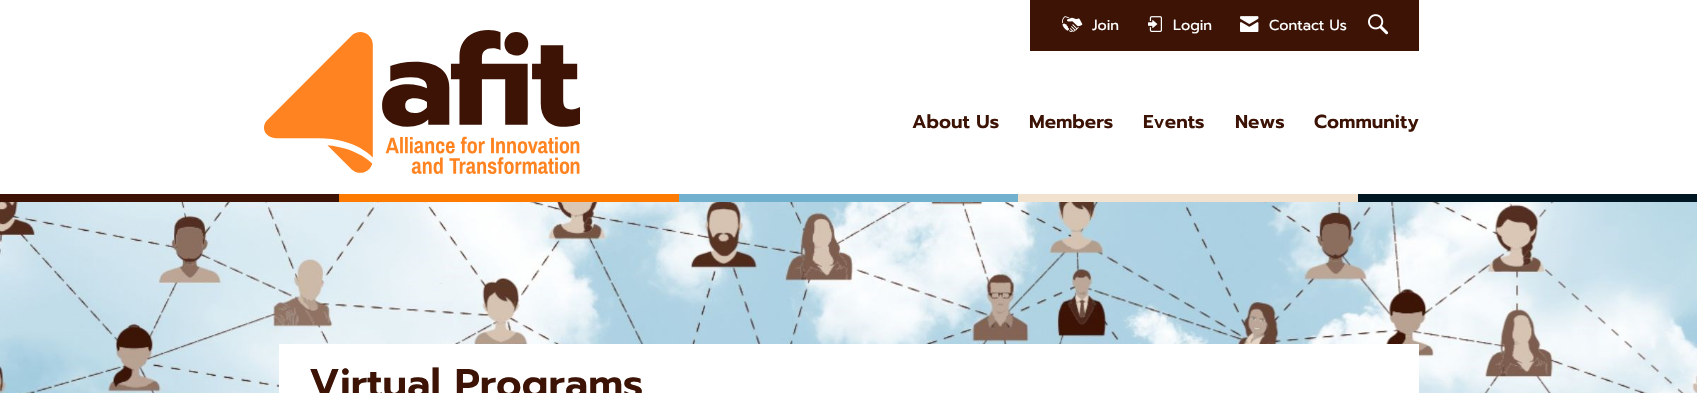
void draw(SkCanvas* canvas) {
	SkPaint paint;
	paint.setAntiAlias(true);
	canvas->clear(0xffffffff);
	paint.setColor(0xff3c1305);
	canvas->drawRect(SkRect::MakeXYWH(1030, 0, 389, 51), paint);
	canvas->drawImageRect(SkImages::DeferredFromEncodedData(SkData::MakeFromFileName("img1.png")), SkRect::MakeXYWH(1062, 16, 21, 16), SkSamplingOptions());
	SkFont f1(fontMgr->matchFamilyStyle("Prompt", SkFontStyle::Normal()), 14.5);
	f1.setSubpixel(true);
	paint.setColor(0xffffffff);
	canvas->drawString("Join", 1092, 30, f1, paint);
	canvas->drawImageRect(SkImages::DeferredFromEncodedData(SkData::MakeFromFileName("img2.png")), SkRect::MakeXYWH(1148, 16, 14, 16), SkSamplingOptions());
	canvas->drawString("Login", 1173, 30, f1, paint);
	canvas->drawImageRect(SkImages::DeferredFromEncodedData(SkData::MakeFromFileName("img3.png")), SkRect::MakeXYWH(1240, 16, 19, 16), SkSamplingOptions());
	canvas->drawString("Contact Us", 1269, 30, f1, paint);
	canvas->drawImageRect(SkImages::DeferredFromEncodedData(SkData::MakeFromFileName("img4.png")), SkRect::MakeXYWH(1368, 14, 21, 21), SkSamplingOptions());
	canvas->drawImageRect(SkImages::DeferredFromEncodedData(SkData::MakeFromFileName("img5.png")), SkRect::MakeXYWH(264, 30, 316, 144), SkSamplingOptions());
	SkFont f2(fontMgr->matchFamilyStyle("Prompt", SkFontStyle(600, SkFontStyle::kNormal_Width, SkFontStyle::kUpright_Slant)), 18.75);
	f2.setSubpixel(true);
	paint.setColor(0xff3c1305);
	canvas->drawString("About Us", 912, 128, f2, paint);
	canvas->drawString("Members", 1029, 128, f2, paint);
	canvas->drawString("Events", 1143, 128, f2, paint);
	canvas->drawString("News", 1235, 128, f2, paint);
	canvas->drawString("Community", 1314, 128, f2, paint);
	canvas->drawRect(SkRect::MakeXYWH(0, 194, 339, 8), paint);
	paint.setColor(0xffff7a00);
	canvas->drawRect(SkRect::MakeXYWH(339, 194, 340, 8), paint);
	paint.setColor(0xff72b1ce);
	canvas->drawRect(SkRect::MakeXYWH(679, 194, 339, 8), paint);
	paint.setColor(0xfff1e1cf);
	canvas->drawRect(SkRect::MakeXYWH(1018, 194, 340, 8), paint);
	paint.setColor(0xff001723);
	canvas->drawRect(SkRect::MakeXYWH(1358, 194, 339, 8), paint);
	canvas->drawImageRect(SkImages::DeferredFromEncodedData(SkData::MakeFromFileName("img6.png")), SkRect::MakeXYWH(0, 202, 1697, 191), SkSamplingOptions());
	paint.setColor(0xffffffff);
	canvas->drawRect(SkRect::MakeXYWH(279, 344, 1140, 49), paint);
	SkFont f3(fontMgr->matchFamilyStyle("Prompt", SkFontStyle(600, SkFontStyle::kNormal_Width, SkFontStyle::kUpright_Slant)), 40);
	f3.setSubpixel(true);
	paint.setColor(0xff3c1305);
	canvas->drawString("Virtual Programs", 309, 397, f3, paint);
}
